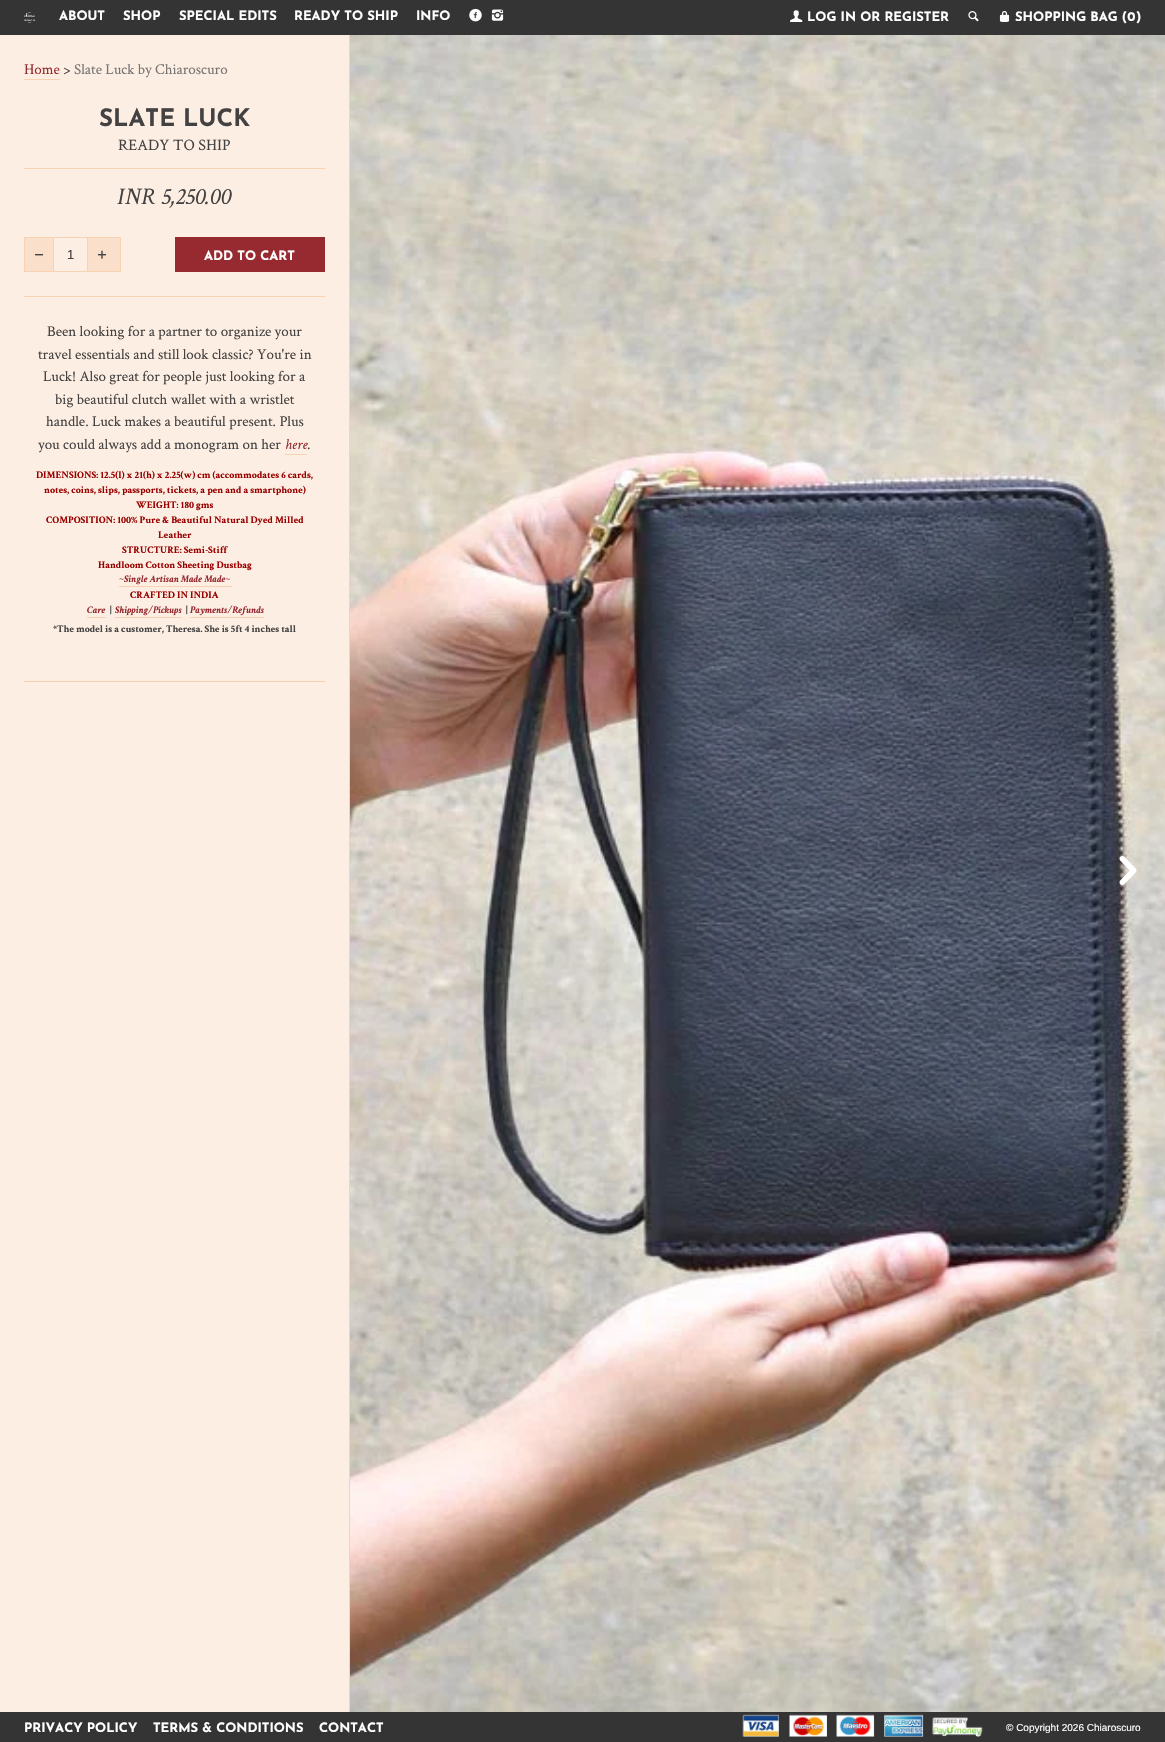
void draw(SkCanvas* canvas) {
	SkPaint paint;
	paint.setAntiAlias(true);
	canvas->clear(0xfffceee2);
	paint.setColor(0xff353434);
	canvas->drawRect(SkRect::MakeXYWH(0, 0, 1165, 35), paint);
	canvas->drawImageRect(SkImages::DeferredFromEncodedData(SkData::MakeFromFileName("img1.png")), SkRect::MakeXYWH(24, 12, 11, 11), SkSamplingOptions());
	SkFont f1(fontMgr->matchFamilyStyle("Josefin Sans", SkFontStyle::Bold()), 13);
	f1.setSubpixel(true);
	paint.setColor(0xffffffff);
	canvas->drawString("ABOUT", 59, 20, f1, paint);
	canvas->drawString("SHOP", 123, 20, f1, paint);
	canvas->drawString("SPECIAL EDITS", 179, 20, f1, paint);
	canvas->drawString("READY TO SHIP", 294, 20, f1, paint);
	canvas->drawString("INFO", 416, 20, f1, paint);
	canvas->drawImageRect(SkImages::DeferredFromEncodedData(SkData::MakeFromFileName("img2.png")), SkRect::MakeXYWH(469, 8, 13, 14), SkSamplingOptions());
	canvas->drawImageRect(SkImages::DeferredFromEncodedData(SkData::MakeFromFileName("img3.png")), SkRect::MakeXYWH(491, 9, 13, 12), SkSamplingOptions());
	canvas->drawImageRect(SkImages::DeferredFromEncodedData(SkData::MakeFromFileName("img4.png")), SkRect::MakeXYWH(790, 10, 13, 12), SkSamplingOptions());
	canvas->drawString("LOG IN OR REGISTER", 807, 21, f1, paint);
	canvas->drawImageRect(SkImages::DeferredFromEncodedData(SkData::MakeFromFileName("img5.png")), SkRect::MakeXYWH(968, 11, 11, 11), SkSamplingOptions());
	canvas->drawImageRect(SkImages::DeferredFromEncodedData(SkData::MakeFromFileName("img6.png")), SkRect::MakeXYWH(999, 11, 11, 11), SkSamplingOptions());
	canvas->drawString("SHOPPING BAG (0", 1015, 21, f1, paint);
	canvas->drawString(")", 1136, 21, f1, paint);
	paint.setColor(0xfff7d3b4);
	canvas->drawRect(SkRect::MakeXYWH(349, 35, 1, 1677), paint);
	SkFont f2(fontMgr->matchFamilyStyle("Crimson Text", SkFontStyle::Normal()), 15);
	f2.setSubpixel(true);
	paint.setColor(0xff972a31);
	canvas->drawString("Home", 24, 74, f2, paint);
	paint.setColor(0xfff7d3b4);
	canvas->drawRect(SkRect::MakeXYWH(24, 79, 36, 1), paint);
	paint.setColor(0xff434141);
	canvas->drawString(">", 63, 74, f2, paint);
	paint.setColor(0xff777373);
	canvas->drawString("Slate Luck by Chiaroscuro", 74, 74, f2, paint);
	SkFont f3(fontMgr->matchFamilyStyle("Josefin Sans", SkFontStyle::Bold()), 24);
	f3.setSubpixel(true);
	paint.setColor(0xff434141);
	canvas->drawString("SLATE LUCK", 99, 126, f3, paint);
	paint.setColor(0xfff7d3b4);
	canvas->drawRect(SkRect::MakeXYWH(24, 168, 301, 1), paint);
	SkFont f4(fontMgr->matchFamilyStyle("Crimson Text", SkFontStyle::Normal()), 16);
	f4.setSubpixel(true);
	paint.setColor(0xff434141);
	canvas->drawString("READY TO SHIP", 118, 150, f4, paint);
	SkFont f5(fontMgr->matchFamilyStyle("Crimson Text", SkFontStyle::Italic()), 24);
	f5.setSubpixel(true);
	canvas->drawString("INR 5,250.00", 117, 204, f5, paint);
	paint.setColor(0xfffae0cb);
	canvas->drawRect(SkRect::MakeXYWH(24.5, 237.5, 96, 34), paint);
	paint.setStroke(true);
	paint.setStrokeWidth(1);
	paint.setColor(0xfff7d3b4);
	canvas->drawRect(SkRect::MakeXYWH(24.5, 237.5, 96, 34), paint);
	canvas->drawImageRect(SkImages::DeferredFromEncodedData(SkData::MakeFromFileName("img7.png")), SkRect::MakeXYWH(34, 254, 10, 2), SkSamplingOptions());
	paint.setStroke(false);
	paint.setColor(0xfffceee2);
	canvas->drawRect(SkRect::MakeXYWH(54, 238, 33, 33), paint);
	paint.setColor(0xfff7d3b4);
	canvas->drawRect(SkRect::MakeXYWH(87, 238, 1, 33), paint);
	canvas->drawRect(SkRect::MakeXYWH(53, 238, 1, 33), paint);
	SkFont f6(fontMgr->matchFamilyStyle("Liberation Sans", SkFontStyle::Normal()), 13);
	f6.setSubpixel(true);
	paint.setColor(0xff434141);
	canvas->drawString("1", 67, 259, f6, paint);
	canvas->drawImageRect(SkImages::DeferredFromEncodedData(SkData::MakeFromFileName("img8.png")), SkRect::MakeXYWH(97, 250, 10, 9), SkSamplingOptions());
	paint.setColor(0xff972a31);
	canvas->drawRect(SkRect::MakeXYWH(175, 237, 150, 35), paint);
	paint.setColor(0xffffffff);
	canvas->drawString("ADD TO CART", 204, 260, f1, paint);
	paint.setColor(0xfff7d3b4);
	canvas->drawRect(SkRect::MakeXYWH(24, 296, 301, 1), paint);
	canvas->drawRect(SkRect::MakeXYWH(24, 681, 301, 1), paint);
	paint.setColor(0xff434141);
	canvas->drawString("Been looking for a partner to organize your", 47, 336, f2, paint);
	canvas->drawString("travel essentials and still look classic? You're in", 38, 359, f2, paint);
	canvas->drawString("Luck! Also great for people just looking for a", 43, 381, f2, paint);
	canvas->drawString("big beautiful clutch wallet with a wristlet", 55, 404, f2, paint);
	canvas->drawString("handle. Luck makes a beautiful present. Plus", 46, 426, f2, paint);
	canvas->drawString("you could always add a monogram on her", 38, 449, f2, paint);
	SkFont f7(fontMgr->matchFamilyStyle("Crimson Text", SkFontStyle::Italic()), 15);
	f7.setSubpixel(true);
	paint.setColor(0xff972a31);
	canvas->drawString("here", 285, 449, f7, paint);
	paint.setColor(0xff434141);
	canvas->drawString(".", 307, 449, f2, paint);
	paint.setColor(0xfff7d3b4);
	canvas->drawRect(SkRect::MakeXYWH(285, 454, 22, 1), paint);
	SkFont f8(fontMgr->matchFamilyStyle("Crimson Text", SkFontStyle::Bold()), 10.05);
	f8.setSubpixel(true);
	paint.setColor(0xff990000);
	canvas->drawString("DIMENSIONS: 12.5(l) x 21(h) x 2.25(w) cm (accommodates 6 cards,", 36, 478, f8, paint);
	canvas->drawString("notes, coins, slips, passports, tickets, a pen and a smartphone)", 44, 493, f8, paint);
	canvas->drawString("WEIGHT: 180 gms", 136, 508, f8, paint);
	canvas->drawString("COMPOSITION: 100% Pure & Beautiful Natural Dyed Milled", 46, 523, f8, paint);
	canvas->drawString("Leather", 158, 538, f8, paint);
	canvas->drawString("STRUCTURE: Semi-Stiff", 122, 553, f8, paint);
	canvas->drawString("Handloom Cotton Sheeting Dustbag", 98, 568, f8, paint);
	SkFont f9(fontMgr->matchFamilyStyle("Crimson Text", SkFontStyle::BoldItalic()), 10.05);
	f9.setSubpixel(true);
	paint.setColor(0xff972a31);
	canvas->drawString("~Single Artisan Made Made~", 119, 582, f9, paint);
	paint.setColor(0xfff7d3b4);
	canvas->drawRect(SkRect::MakeXYWH(119, 586, 113, 1), paint);
	paint.setColor(0xff990000);
	canvas->drawString("CRAFTED IN INDIA", 130, 598, f8, paint);
	paint.setColor(0xff972a31);
	canvas->drawString("Care", 87, 613, f9, paint);
	paint.setColor(0xfff7d3b4);
	canvas->drawRect(SkRect::MakeXYWH(87, 617, 19, 1), paint);
	paint.setColor(0xff434141);
	canvas->drawString("|", 110, 613, f8, paint);
	paint.setColor(0xff972a31);
	canvas->drawString("Shipping/Pickups", 115, 613, f9, paint);
	paint.setColor(0xfff7d3b4);
	canvas->drawRect(SkRect::MakeXYWH(115, 617, 67, 1), paint);
	paint.setColor(0xff434141);
	canvas->drawString("|", 186, 613, f8, paint);
	paint.setColor(0xff972a31);
	canvas->drawString("Payments/Refunds", 190, 613, f9, paint);
	paint.setColor(0xfff7d3b4);
	canvas->drawRect(SkRect::MakeXYWH(190, 617, 74, 1), paint);
	paint.setColor(0xff434141);
	canvas->drawString("*The model is a customer, Theresa. She is 5ft 4 inches tall", 53, 632, f8, paint);
	canvas->drawImageRect(SkImages::DeferredFromEncodedData(SkData::MakeFromFileName("img9.png")), SkRect::MakeXYWH(350, 35, 815, 1677), SkSamplingOptions());
	canvas->drawImageRect(SkImages::DeferredFromEncodedData(SkData::MakeFromFileName("img10.png")), SkRect::MakeXYWH(1119, 856, 18, 29), SkSamplingOptions());
	paint.setColor(0xff353434);
	canvas->drawRect(SkRect::MakeXYWH(0, 1712, 1165, 30), paint);
	paint.setColor(0xffffffff);
	canvas->drawString("PRIVACY POLICY", 24, 1732, f1, paint);
	canvas->drawString("TERMS & CONDITIONS", 153, 1732, f1, paint);
	canvas->drawString("CONTACT", 319, 1732, f1, paint);
	canvas->drawImageRect(SkImages::DeferredFromEncodedData(SkData::MakeFromFileName("img11.png")), SkRect::MakeXYWH(742, 1714, 241, 23), SkSamplingOptions());
	SkFont f10(fontMgr->matchFamilyStyle("Liberation Sans", SkFontStyle::Normal()), 10);
	f10.setSubpixel(true);
	canvas->drawString("© Copyright 2026 Chiaroscuro", 1006, 1731, f10, paint);
}
